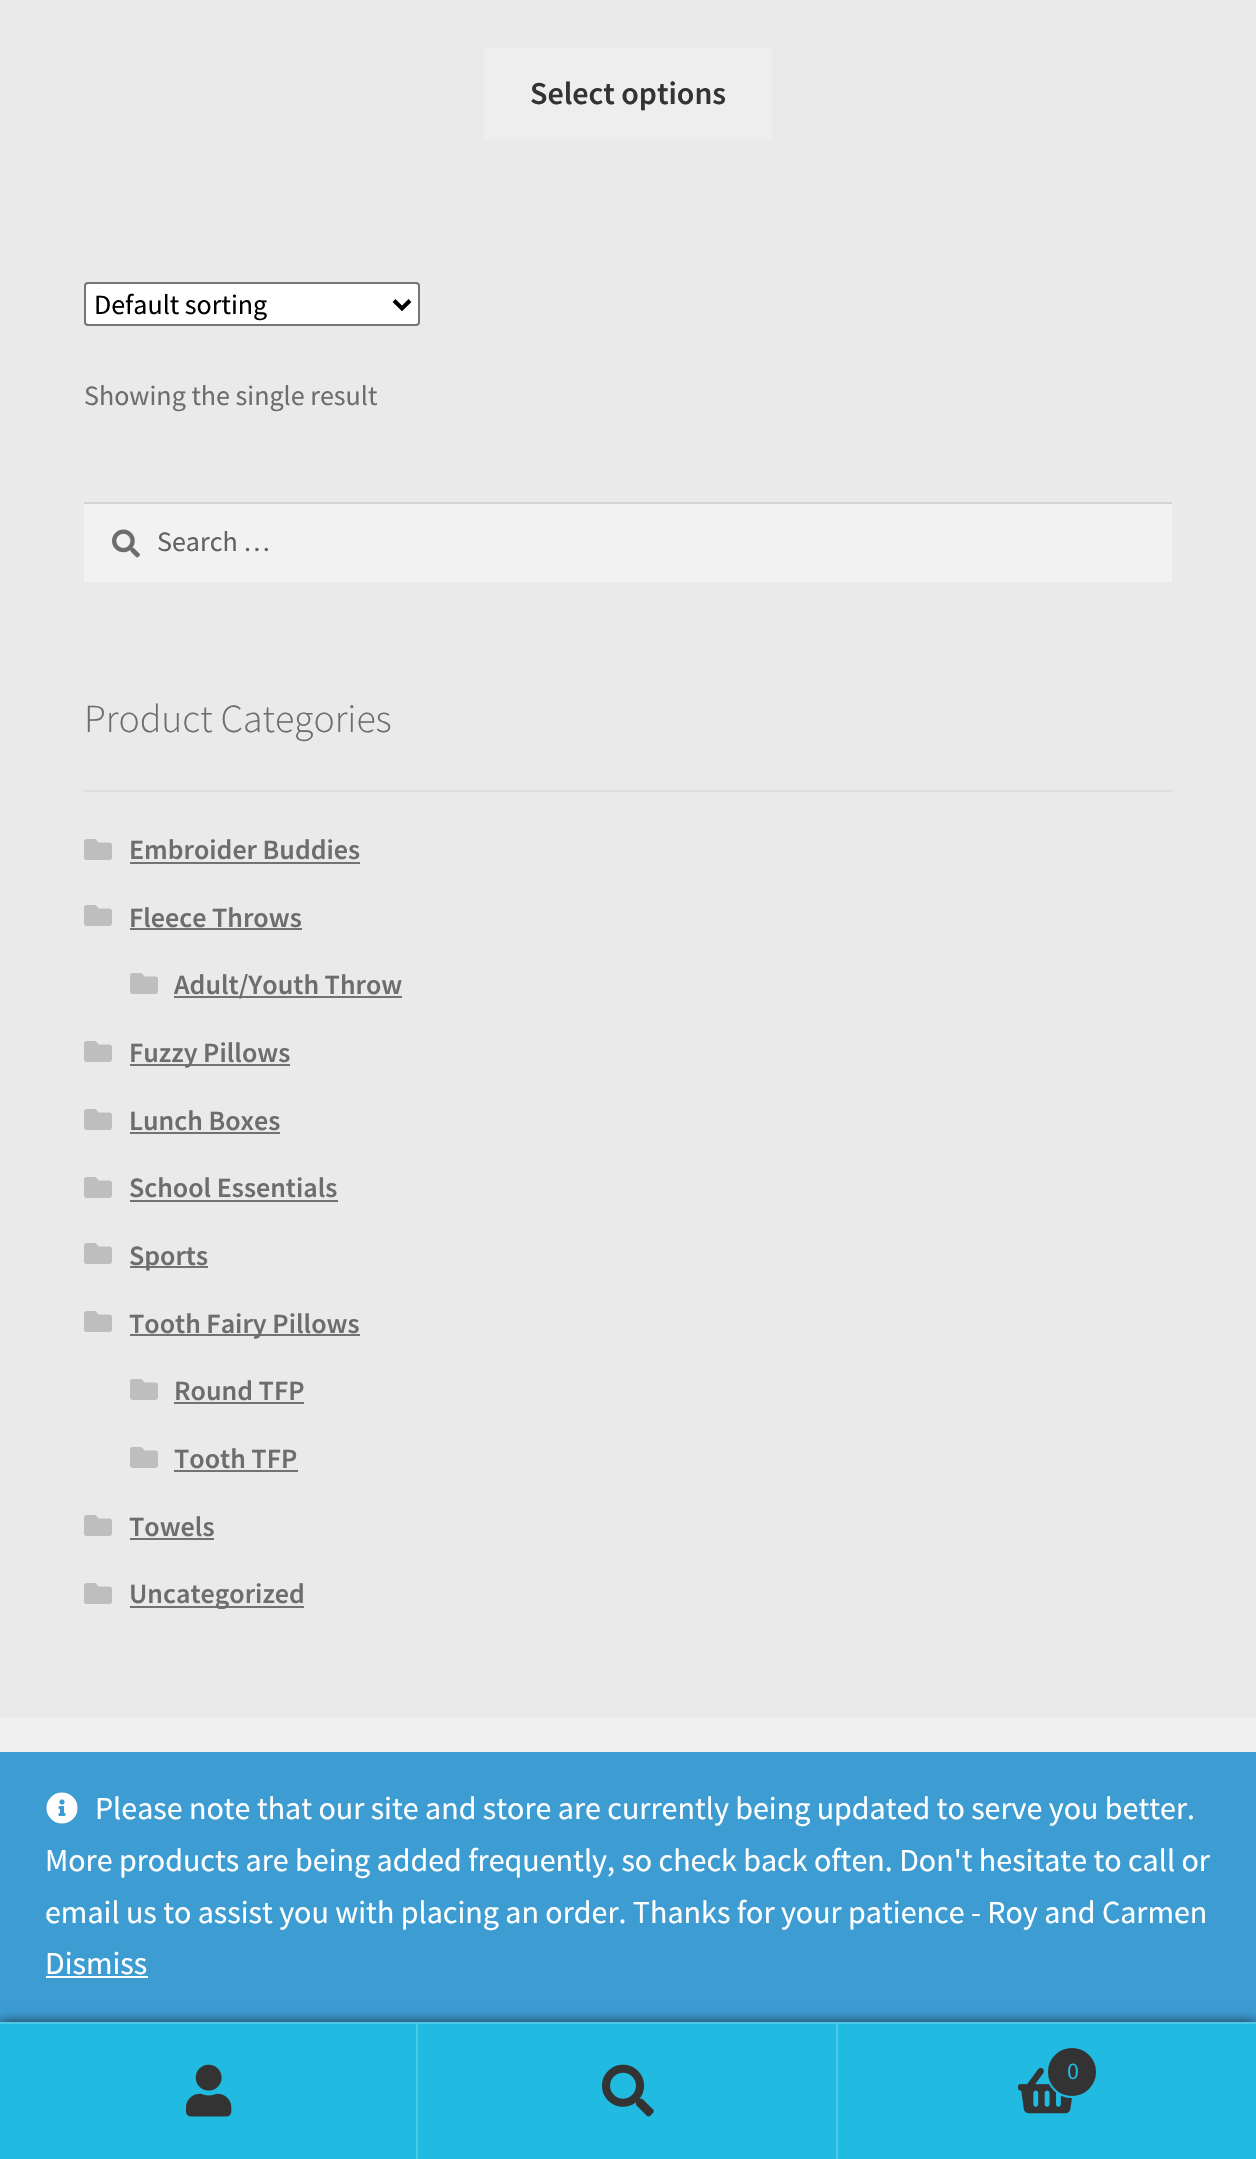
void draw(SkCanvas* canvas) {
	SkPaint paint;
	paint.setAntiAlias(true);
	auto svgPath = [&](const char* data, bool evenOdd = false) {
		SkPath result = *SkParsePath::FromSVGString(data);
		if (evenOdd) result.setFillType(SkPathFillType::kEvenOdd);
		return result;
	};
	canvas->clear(0xffeaeaea);
	paint.setColor(0xffeeeeee);
	canvas->drawRect(SkRect::MakeXYWH(484, 48, 288, 92), paint);
	SkFont f1(fontMgr->matchFamilyStyle("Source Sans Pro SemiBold", SkFontStyle(600, SkFontStyle::kNormal_Width, SkFontStyle::kUpright_Slant)), 32);
	f1.setSubpixel(true);
	paint.setColor(0xff333333);
	canvas->drawString("Select options", 530, 104, f1, paint);
	paint.setColor(0xffffffff);
	canvas->drawRoundRect(SkRect::MakeXYWH(85, 283, 334, 42), 3, 3, paint);
	paint.setStroke(true);
	paint.setStrokeWidth(2);
	paint.setColor(0xff767676);
	canvas->drawRoundRect(SkRect::MakeXYWH(85, 283, 334, 42), 3, 3, paint);
	paint.setStrokeWidth(4);
	paint.setColor(0xff000000);
	canvas->drawPath(svgPath("M394 300.5L402 308.5L410 300.5"), paint);
	SkFont f2(fontMgr->matchFamilyStyle("Source Sans Pro", SkFontStyle::Normal()), 28);
	f2.setSubpixel(true);
	paint.setStroke(false);
	canvas->drawString("Default sorting", 94, 314, f2, paint);
	paint.setColor(0xff6d6d6d);
	canvas->drawString("Showing the single result", 84, 405, f2, paint);
	paint.setColor(0xfff2f2f2);
	canvas->drawRect(SkRect::MakeXYWH(84, 504, 1088, 78), paint);
	canvas->drawImageRect(SkImages::DeferredFromEncodedData(SkData::MakeFromFileName("img1.png")), SkRect::MakeXYWH(112, 529, 28, 29), SkSamplingOptions());
	paint.setColor(0xffd4d4d4);
	canvas->drawRect(SkRect::MakeXYWH(84, 502, 1088, 2), paint);
	paint.setColor(0xff616161);
	canvas->drawString("Search …", 157, 551, f2, paint);
	paint.setColor(0xffdedede);
	canvas->drawRect(SkRect::MakeXYWH(84, 790, 1088, 2), paint);
	SkFont f3(fontMgr->matchFamilyStyle("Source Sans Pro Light", SkFontStyle(300, SkFontStyle::kNormal_Width, SkFontStyle::kUpright_Slant)), 39.75);
	f3.setSubpixel(true);
	paint.setColor(0xff6d6d6d);
	canvas->drawString("Product Categories", 84, 732, f3, paint);
	canvas->drawImageRect(SkImages::DeferredFromEncodedData(SkData::MakeFromFileName("img2.png")), SkRect::MakeXYWH(84, 839, 28, 21), SkSamplingOptions());
	SkFont f4(fontMgr->matchFamilyStyle("Source Sans Pro SemiBold", SkFontStyle(600, SkFontStyle::kNormal_Width, SkFontStyle::kUpright_Slant)), 28);
	f4.setSubpixel(true);
	canvas->drawString("Embroider Buddies", 129, 859, f4, paint);
	paint.setColor(0xff727272);
	canvas->drawRect(SkRect::MakeXYWH(130, 862, 230, 2), paint);
	canvas->drawImageRect(SkImages::DeferredFromEncodedData(SkData::MakeFromFileName("img2.png")), SkRect::MakeXYWH(84, 905, 28, 21), SkSamplingOptions());
	paint.setColor(0xff6d6d6d);
	canvas->drawString("Fleece Throws", 129, 927, f4, paint);
	paint.setColor(0xff727272);
	canvas->drawRect(SkRect::MakeXYWH(130, 928, 172, 2), paint);
	canvas->drawImageRect(SkImages::DeferredFromEncodedData(SkData::MakeFromFileName("img2.png")), SkRect::MakeXYWH(130, 973, 28, 21), SkSamplingOptions());
	canvas->drawRect(SkRect::MakeXYWH(174, 996, 228, 2), paint);
	paint.setColor(0xff6d6d6d);
	canvas->drawString("Adult/Youth Throw", 174, 994, f4, paint);
	canvas->drawImageRect(SkImages::DeferredFromEncodedData(SkData::MakeFromFileName("img2.png")), SkRect::MakeXYWH(84, 1041, 28, 21), SkSamplingOptions());
	paint.setColor(0xff727272);
	canvas->drawRect(SkRect::MakeXYWH(130, 1064, 160, 2), paint);
	paint.setColor(0xff6d6d6d);
	canvas->drawString("Fuzzy Pillows", 129, 1062, f4, paint);
	canvas->drawImageRect(SkImages::DeferredFromEncodedData(SkData::MakeFromFileName("img2.png")), SkRect::MakeXYWH(84, 1109, 28, 21), SkSamplingOptions());
	canvas->drawString("Lunch Boxes", 129, 1130, f4, paint);
	paint.setColor(0xff727272);
	canvas->drawRect(SkRect::MakeXYWH(130, 1132, 150, 2), paint);
	canvas->drawImageRect(SkImages::DeferredFromEncodedData(SkData::MakeFromFileName("img2.png")), SkRect::MakeXYWH(84, 1177, 28, 21), SkSamplingOptions());
	paint.setColor(0xff6d6d6d);
	canvas->drawString("School Essentials", 129, 1197, f4, paint);
	paint.setColor(0xff727272);
	canvas->drawRect(SkRect::MakeXYWH(130, 1200, 208, 2), paint);
	canvas->drawImageRect(SkImages::DeferredFromEncodedData(SkData::MakeFromFileName("img2.png")), SkRect::MakeXYWH(84, 1243, 28, 21), SkSamplingOptions());
	canvas->drawRect(SkRect::MakeXYWH(130, 1266, 78, 2), paint);
	paint.setColor(0xff6d6d6d);
	canvas->drawString("Sports", 129, 1265, f4, paint);
	canvas->drawImageRect(SkImages::DeferredFromEncodedData(SkData::MakeFromFileName("img2.png")), SkRect::MakeXYWH(84, 1311, 28, 21), SkSamplingOptions());
	paint.setColor(0xff727272);
	canvas->drawRect(SkRect::MakeXYWH(130, 1334, 230, 2), paint);
	paint.setColor(0xff6d6d6d);
	canvas->drawString("Tooth Fairy Pillows", 129, 1333, f4, paint);
	canvas->drawImageRect(SkImages::DeferredFromEncodedData(SkData::MakeFromFileName("img2.png")), SkRect::MakeXYWH(130, 1379, 28, 21), SkSamplingOptions());
	canvas->drawString("Round TFP", 174, 1400, f4, paint);
	paint.setColor(0xff727272);
	canvas->drawRect(SkRect::MakeXYWH(174, 1402, 130, 2), paint);
	canvas->drawImageRect(SkImages::DeferredFromEncodedData(SkData::MakeFromFileName("img2.png")), SkRect::MakeXYWH(130, 1447, 28, 21), SkSamplingOptions());
	paint.setColor(0xff6d6d6d);
	canvas->drawString("Tooth TFP", 174, 1468, f4, paint);
	paint.setColor(0xff727272);
	canvas->drawRect(SkRect::MakeXYWH(174, 1470, 124, 2), paint);
	canvas->drawImageRect(SkImages::DeferredFromEncodedData(SkData::MakeFromFileName("img2.png")), SkRect::MakeXYWH(84, 1515, 28, 21), SkSamplingOptions());
	paint.setColor(0xff6d6d6d);
	canvas->drawString("Towels", 129, 1536, f4, paint);
	paint.setColor(0xff727272);
	canvas->drawRect(SkRect::MakeXYWH(130, 1538, 84, 2), paint);
	canvas->drawImageRect(SkImages::DeferredFromEncodedData(SkData::MakeFromFileName("img2.png")), SkRect::MakeXYWH(84, 1583, 28, 21), SkSamplingOptions());
	canvas->drawRect(SkRect::MakeXYWH(130, 1606, 174, 2), paint);
	paint.setColor(0xff6d6d6d);
	canvas->drawString("Uncategorized", 129, 1603, f4, paint);
	paint.setColor(0xfff0f0f0);
	canvas->drawRect(SkRect::MakeXYWH(0, 1718, 1256, 34), paint);
	paint.setColor(0xff3d9cd2);
	canvas->drawRect(SkRect::MakeXYWH(0, 1752, 1256, 270), paint);
	paint.setColor(0xb3000000);
	paint.setMaskFilter(SkMaskFilter::MakeBlur(kNormal_SkBlurStyle, 6));
	canvas->drawRect(SkRect::MakeXYWH(0, 2022, 1256, 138), paint);
	paint.setMaskFilter(nullptr);
	paint.setColor(0xff4dc8e6);
	canvas->drawRect(SkRect::MakeXYWH(0, 2022, 1256, 2), paint);
	paint.setColor(0xff21bae0);
	canvas->drawRect(SkRect::MakeXYWH(0, 2024, 416, 135), paint);
	paint.setColor(0xff4dc8e6);
	canvas->drawRect(SkRect::MakeXYWH(416, 2024, 2, 135), paint);
	canvas->drawImageRect(SkImages::DeferredFromEncodedData(SkData::MakeFromFileName("img3.png")), SkRect::MakeXYWH(186, 2064, 46, 53), SkSamplingOptions());
	paint.setColor(0xff21bae0);
	canvas->drawRect(SkRect::MakeXYWH(418, 2024, 418, 135), paint);
	paint.setColor(0xff4dc8e6);
	canvas->drawRect(SkRect::MakeXYWH(836, 2024, 2, 135), paint);
	canvas->drawImageRect(SkImages::DeferredFromEncodedData(SkData::MakeFromFileName("img4.png")), SkRect::MakeXYWH(602, 2064, 52, 53), SkSamplingOptions());
	paint.setColor(0xff21bae0);
	canvas->drawRect(SkRect::MakeXYWH(838, 2024, 418, 135), paint);
	canvas->drawImageRect(SkImages::DeferredFromEncodedData(SkData::MakeFromFileName("img5.png")), SkRect::MakeXYWH(1018, 2067, 55, 47), SkSamplingOptions());
	paint.setColor(0xff333333);
	canvas->drawCircle(1072, 2072, 25, paint);
	paint.setStroke(true);
	paint.setStrokeWidth(2);
	paint.setColor(0xff21bae0);
	canvas->drawCircle(1072, 2072, 25, paint);
	SkFont f5(fontMgr->matchFamilyStyle("Source Sans Pro", SkFontStyle::Normal()), 24);
	f5.setSubpixel(true);
	paint.setStroke(false);
	canvas->drawString("0", 1067, 2079, f5, paint);
	canvas->drawImageRect(SkImages::DeferredFromEncodedData(SkData::MakeFromFileName("img6.png")), SkRect::MakeXYWH(46, 1792, 32, 32), SkSamplingOptions());
	SkFont f6(fontMgr->matchFamilyStyle("Source Sans Pro", SkFontStyle::Normal()), 32);
	f6.setSubpixel(true);
	paint.setColor(0xffffffff);
	canvas->drawString("Please note that our site and store are currently being updated to serve you better.", 95, 1819, f6, paint);
	canvas->drawString("More products are being added frequently, so check back often. Don't hesitate to call or", 45, 1871, f6, paint);
	canvas->drawString("email us to assist you with placing an order. Thanks for your patience - Roy and Carmen", 45, 1923, f6, paint);
	canvas->drawString("Dismiss", 45, 1974, f6, paint);
	canvas->drawRect(SkRect::MakeXYWH(46, 1976, 102, 2), paint);
}
